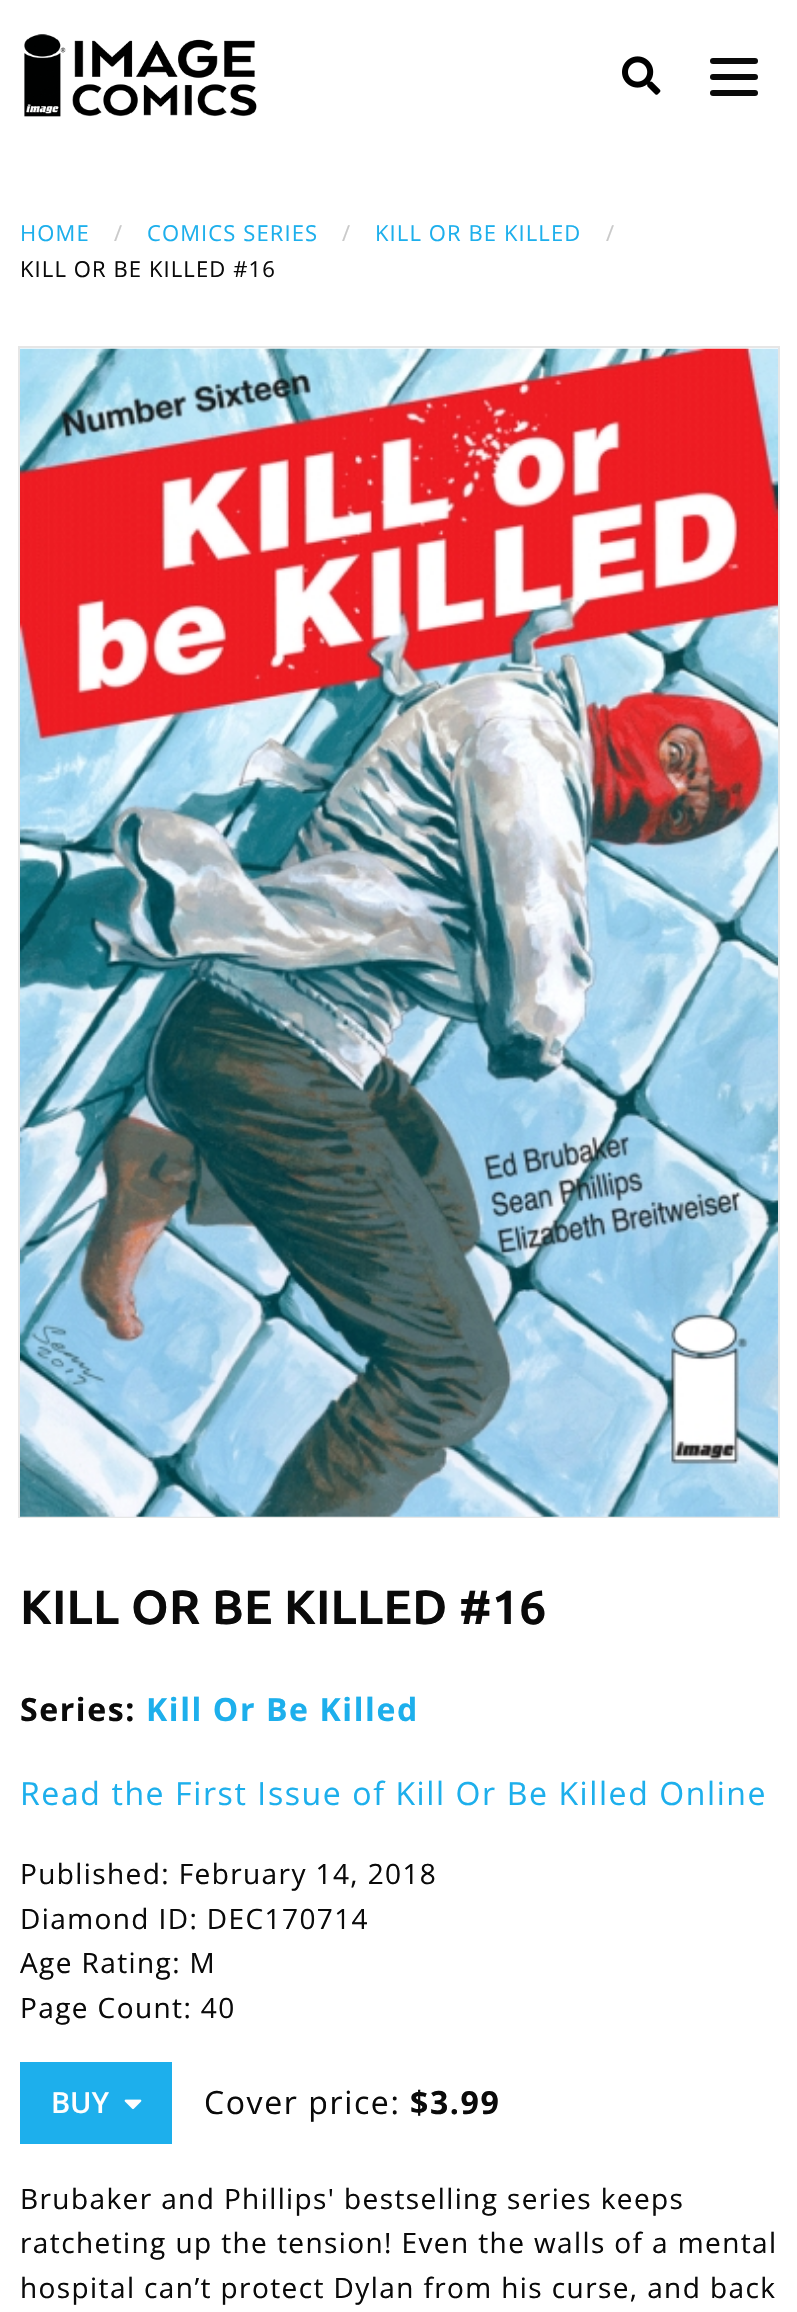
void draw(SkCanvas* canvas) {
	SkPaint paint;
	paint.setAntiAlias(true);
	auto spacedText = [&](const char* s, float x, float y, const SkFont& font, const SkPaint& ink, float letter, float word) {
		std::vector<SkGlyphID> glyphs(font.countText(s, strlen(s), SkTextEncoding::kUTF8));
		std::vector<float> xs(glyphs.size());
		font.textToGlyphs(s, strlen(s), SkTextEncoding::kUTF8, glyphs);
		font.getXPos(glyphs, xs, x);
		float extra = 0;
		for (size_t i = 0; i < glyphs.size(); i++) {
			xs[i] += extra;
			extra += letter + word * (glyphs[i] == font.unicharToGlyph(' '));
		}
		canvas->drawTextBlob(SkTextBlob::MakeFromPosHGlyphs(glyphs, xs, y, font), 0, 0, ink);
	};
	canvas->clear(0xffffffff);
	canvas->drawImageRect(SkImages::DeferredFromEncodedData(SkData::MakeFromFileName("img1.png")), SkRect::MakeXYWH(24, 34, 233, 83), SkSamplingOptions());
	canvas->drawImageRect(SkImages::DeferredFromEncodedData(SkData::MakeFromFileName("img2.png")), SkRect::MakeXYWH(622, 56, 39, 39), SkSamplingOptions());
	paint.setColor(0xff0a0a0a);
	canvas->drawRoundRect(SkRect::MakeXYWH(710, 58, 48, 6), 3, 3, paint);
	canvas->drawRoundRect(SkRect::MakeXYWH(710, 74, 48, 6), 3, 3, paint);
	canvas->drawRoundRect(SkRect::MakeXYWH(710, 90, 48, 6), 3, 3, paint);
	SkFont f1(fontMgr->matchFamilyStyle("Open Sans", SkFontStyle::Normal()), 22);
	f1.setSubpixel(true);
	paint.setColor(0xff1dafec);
	spacedText("HOME", 20, 241, f1, paint, 1.1, 0);
	paint.setColor(0xffcacaca);
	spacedText("/", 114, 241, f1, paint, 1.1, 0);
	paint.setColor(0xff1dafec);
	spacedText("COMICS SERIES", 147, 241, f1, paint, 1.1, 0);
	paint.setColor(0xffcacaca);
	spacedText("/", 342, 241, f1, paint, 1.1, 0);
	paint.setColor(0xff1dafec);
	spacedText("KILL OR BE KILLED", 375, 241, f1, paint, 1.1, 0);
	paint.setColor(0xffcacaca);
	spacedText("/", 606, 241, f1, paint, 1.1, 0);
	paint.setColor(0xff0a0a0a);
	spacedText("KILL OR BE KILLED #16", 20, 277, f1, paint, 1.1, 0);
	paint.setStroke(true);
	paint.setStrokeWidth(2);
	paint.setColor(0xffe6e6e6);
	canvas->drawRect(SkRect::MakeXYWH(19, 347, 760, 1170), paint);
	canvas->drawImageRect(SkImages::DeferredFromEncodedData(SkData::MakeFromFileName("img3.png")), SkRect::MakeXYWH(20, 348, 758, 1169), SkSamplingOptions());
	SkFont f2(fontMgr->matchFamilyStyle("Ubuntu", SkFontStyle::Bold()), 48);
	f2.setSubpixel(true);
	paint.setStroke(false);
	paint.setColor(0xff0a0a0a);
	spacedText("KILL OR BE KILLED #16", 20, 1624, f2, paint, 0.1, 0);
	SkFont f3(fontMgr->matchFamilyStyle("Open Sans", SkFontStyle::Bold()), 32);
	f3.setSubpixel(true);
	spacedText("Series:", 20, 1721, f3, paint, 1.6, 0);
	paint.setColor(0xff1dafec);
	spacedText("Kill Or Be Killed", 146, 1721, f3, paint, 1.6, 0);
	SkFont f4(fontMgr->matchFamilyStyle("Open Sans", SkFontStyle::Normal()), 32);
	f4.setSubpixel(true);
	spacedText("Read the First Issue of Kill Or Be Killed Online", 20, 1805, f4, paint, 1.6, 0);
	SkFont f5(fontMgr->matchFamilyStyle("Open Sans", SkFontStyle::Normal()), 28);
	f5.setSubpixel(true);
	paint.setColor(0xff0a0a0a);
	spacedText("Published: February 14, 2018", 20, 1884, f5, paint, 1.4, 0);
	spacedText("Diamond ID: DEC170714", 20, 1929, f5, paint, 1.4, 0);
	spacedText("Age Rating: M", 20, 1973, f5, paint, 1.4, 0);
	spacedText("Page Count: 40", 20, 2018, f5, paint, 1.4, 0);
	paint.setColor(0xff1dafec);
	canvas->drawRect(SkRect::MakeXYWH(20, 2062, 152, 82), paint);
	SkFont f6(fontMgr->matchFamilyStyle("Open Sans", SkFontStyle(600, SkFontStyle::kNormal_Width, SkFontStyle::kUpright_Slant)), 29);
	f6.setSubpixel(true);
	paint.setColor(0xfffefefe);
	canvas->drawString("BUY", 51, 2113, f6, paint);
	canvas->drawImageRect(SkImages::DeferredFromEncodedData(SkData::MakeFromFileName("img4.png")), SkRect::MakeXYWH(124, 2099, 18, 11), SkSamplingOptions());
	paint.setColor(0xff0a0a0a);
	spacedText("Cover price:", 204, 2114, f4, paint, 1.6, 0);
	spacedText("$3.99", 410, 2114, f3, paint, 1.6, 0);
	spacedText("Brubaker and Phillips' bestselling series keeps", 20, 2209, f5, paint, 1.4, 0);
	spacedText("ratcheting up the tension! Even the walls of a mental", 20, 2253, f5, paint, 1.4, 0);
	spacedText("hospital can’t protect Dylan from his curse, and back", 20, 2298, f5, paint, 1.4, 0);
}
